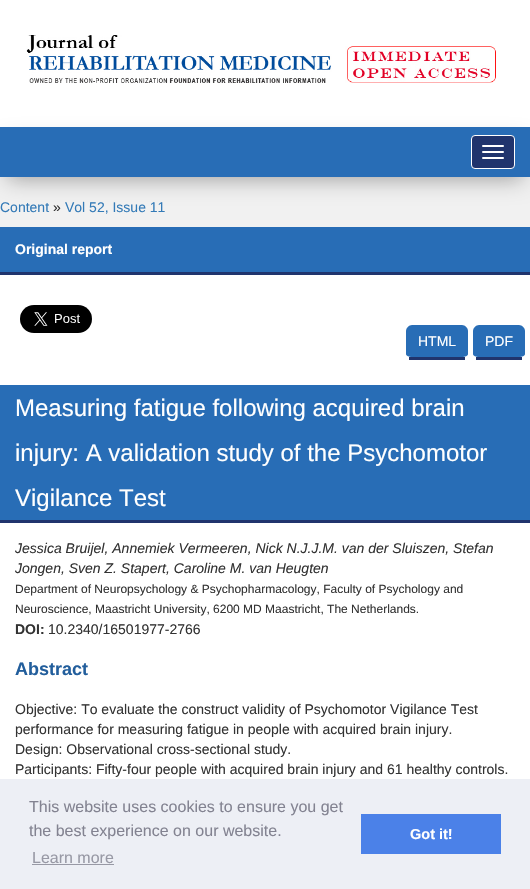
void draw(SkCanvas* canvas) {
	SkPaint paint;
	paint.setAntiAlias(true);
	auto svgPath = [&](const char* data, bool evenOdd = false) {
		SkPath result = *SkParsePath::FromSVGString(data);
		if (evenOdd) result.setFillType(SkPathFillType::kEvenOdd);
		return result;
	};
	canvas->clear(0xfff1f1f1);
	paint.setColor(0xffffffff);
	canvas->drawRect(SkRect::MakeXYWH(0, 0, 530, 127), paint);
	canvas->drawImageRect(SkImages::DeferredFromEncodedData(SkData::MakeFromFileName("img1.png")), SkRect::MakeXYWH(26, 35, 470, 48), SkSamplingOptions());
	paint.setColor(0x59000000);
	paint.setMaskFilter(SkMaskFilter::MakeBlur(kNormal_SkBlurStyle, 11));
	canvas->drawRect(SkRect::MakeXYWH(7, 143, 516, 36), paint);
	paint.setMaskFilter(nullptr);
	paint.setColor(0xff286db6);
	canvas->drawRect(SkRect::MakeXYWH(0, 127, 530, 50), paint);
	paint.setColor(0xff20346d);
	canvas->drawRoundRect(SkRect::MakeXYWH(471.5, 135.5, 43, 33), 3.5, 3.5, paint);
	paint.setStroke(true);
	paint.setStrokeWidth(1);
	paint.setColor(0xffffffff);
	canvas->drawRoundRect(SkRect::MakeXYWH(471.5, 135.5, 43, 33), 3.5, 3.5, paint);
	paint.setStroke(false);
	canvas->drawRoundRect(SkRect::MakeXYWH(482, 145, 22, 2), 1, 1, paint);
	canvas->drawRoundRect(SkRect::MakeXYWH(482, 151, 22, 2), 1, 1, paint);
	canvas->drawRoundRect(SkRect::MakeXYWH(482, 157, 22, 2), 1, 1, paint);
	SkFont f1(fontMgr->matchFamilyStyle("Liberation Sans", SkFontStyle::Normal()), 14);
	f1.setSubpixel(true);
	paint.setColor(0xff337ab7);
	canvas->drawString("Content", 0, 212, f1, paint);
	paint.setColor(0xff333333);
	canvas->drawString("»", 53, 212, f1, paint);
	paint.setColor(0xff337ab7);
	canvas->drawString("Vol 52, Issue 11", 65, 212, f1, paint);
	paint.setColor(0xff286db6);
	canvas->drawRect(SkRect::MakeXYWH(0, 227, 530, 45), paint);
	paint.setColor(0xff20346d);
	canvas->drawRect(SkRect::MakeXYWH(0, 272, 530, 3), paint);
	SkFont f2(fontMgr->matchFamilyStyle("Liberation Sans", SkFontStyle::Bold()), 14);
	f2.setSubpixel(true);
	paint.setColor(0xffffffff);
	canvas->drawString("Original report", 15, 254, f2, paint);
	canvas->drawRect(SkRect::MakeXYWH(0, 275, 530, 504), paint);
	canvas->drawImageRect(SkImages::DeferredFromEncodedData(SkData::MakeFromFileName("img2.png")), SkRect::MakeXYWH(20, 305, 72, 28), SkSamplingOptions());
	paint.setColor(0xff286db6);
	canvas->drawPath(svgPath("M412 325H462C465 325 468 328 468 331V354C468 356 465 357 462 357H412C409 357 406 356 406 354V331C406 328 409 325 412 325Z"), paint);
	paint.setColor(0xff20346d);
	canvas->drawRect(SkRect::MakeXYWH(409, 357, 56, 3), paint);
	paint.setColor(0xffffffff);
	canvas->drawString("HTML", 418, 346, f1, paint);
	paint.setColor(0xff286db6);
	canvas->drawPath(svgPath("M479 325H519C522 325 525 328 525 331V354C525 356 522 357 519 357H479C476 357 473 356 473 354V331C473 328 476 325 479 325Z"), paint);
	paint.setColor(0xff20346d);
	canvas->drawRect(SkRect::MakeXYWH(476, 357, 46, 3), paint);
	paint.setColor(0xffffffff);
	canvas->drawString("PDF", 485, 346, f1, paint);
	paint.setColor(0xff286db6);
	canvas->drawRect(SkRect::MakeXYWH(0, 385, 530, 135), paint);
	paint.setColor(0xff20346d);
	canvas->drawRect(SkRect::MakeXYWH(0, 520, 530, 3), paint);
	SkFont f3(fontMgr->matchFamilyStyle("Liberation Sans", SkFontStyle::Normal()), 24);
	f3.setSubpixel(true);
	paint.setColor(0xffffffff);
	canvas->drawString("Measuring fatigue following acquired brain", 15, 416, f3, paint);
	canvas->drawString("injury: A validation study of the Psychomotor", 15, 461, f3, paint);
	canvas->drawString("Vigilance Test", 15, 506, f3, paint);
	SkFont f4(fontMgr->matchFamilyStyle("Liberation Sans", SkFontStyle::Italic()), 14);
	f4.setSubpixel(true);
	paint.setColor(0xff333333);
	canvas->drawString("Jessica Bruijel, Annemiek Vermeeren, Nick N.J.J.M. van der Sluiszen, Stefan", 15, 553, f4, paint);
	canvas->drawString("Jongen, Sven Z. Stapert, Caroline M. van Heugten", 15, 573, f4, paint);
	SkFont f5(fontMgr->matchFamilyStyle("Liberation Sans", SkFontStyle::Normal()), 12);
	f5.setSubpixel(true);
	canvas->drawString("Department of Neuropsychology & Psychopharmacology, Faculty of Psychology and", 15, 593, f5, paint);
	canvas->drawString("Neuroscience, Maastricht University, 6200 MD Maastricht, The Netherlands.", 15, 613, f5, paint);
	canvas->drawString("DOI:", 15, 634, f2, paint);
	canvas->drawString("10.2340/16501977-2766", 48, 634, f1, paint);
	SkFont f6(fontMgr->matchFamilyStyle("Liberation Sans", SkFontStyle::Bold()), 18);
	f6.setSubpixel(true);
	paint.setColor(0xff225e9c);
	canvas->drawString("Abstract", 15, 675, f6, paint);
	paint.setColor(0xff333333);
	canvas->drawString("Objective: To evaluate the construct validity of Psychomotor Vigilance Test", 15, 714, f1, paint);
	canvas->drawString("performance for measuring fatigue in people with acquired brain injury.", 15, 734, f1, paint);
	canvas->drawString("Design: Observational cross-sectional study.", 15, 754, f1, paint);
	canvas->drawString("Participants: Fifty-four people with acquired brain injury and 61 healthy controls.", 15, 774, f1, paint);
	paint.setColor(0xffedeff5);
	canvas->drawRect(SkRect::MakeXYWH(0, 779, 530, 110), paint);
	SkFont f7(fontMgr->matchFamilyStyle("Liberation Sans", SkFontStyle::Normal()), 16);
	f7.setSubpixel(true);
	paint.setColor(0xff838391);
	canvas->drawString("This website uses cookies to ensure you get", 29, 812, f7, paint);
	canvas->drawString("the best experience on our website.", 29, 836, f7, paint);
	paint.setColor(0xff9899a5);
	canvas->drawString("Learn more", 32, 863, f7, paint);
	canvas->drawRect(SkRect::MakeXYWH(32, 864, 82, 1), paint);
	paint.setColor(0xff4b81e8);
	canvas->drawRect(SkRect::MakeXYWH(361, 814, 140, 40), paint);
	SkFont f8(fontMgr->matchFamilyStyle("Liberation Sans", SkFontStyle::Bold()), 14.5);
	f8.setSubpixel(true);
	paint.setColor(0xffffffff);
	canvas->drawString("Got it!", 410, 839, f8, paint);
}
